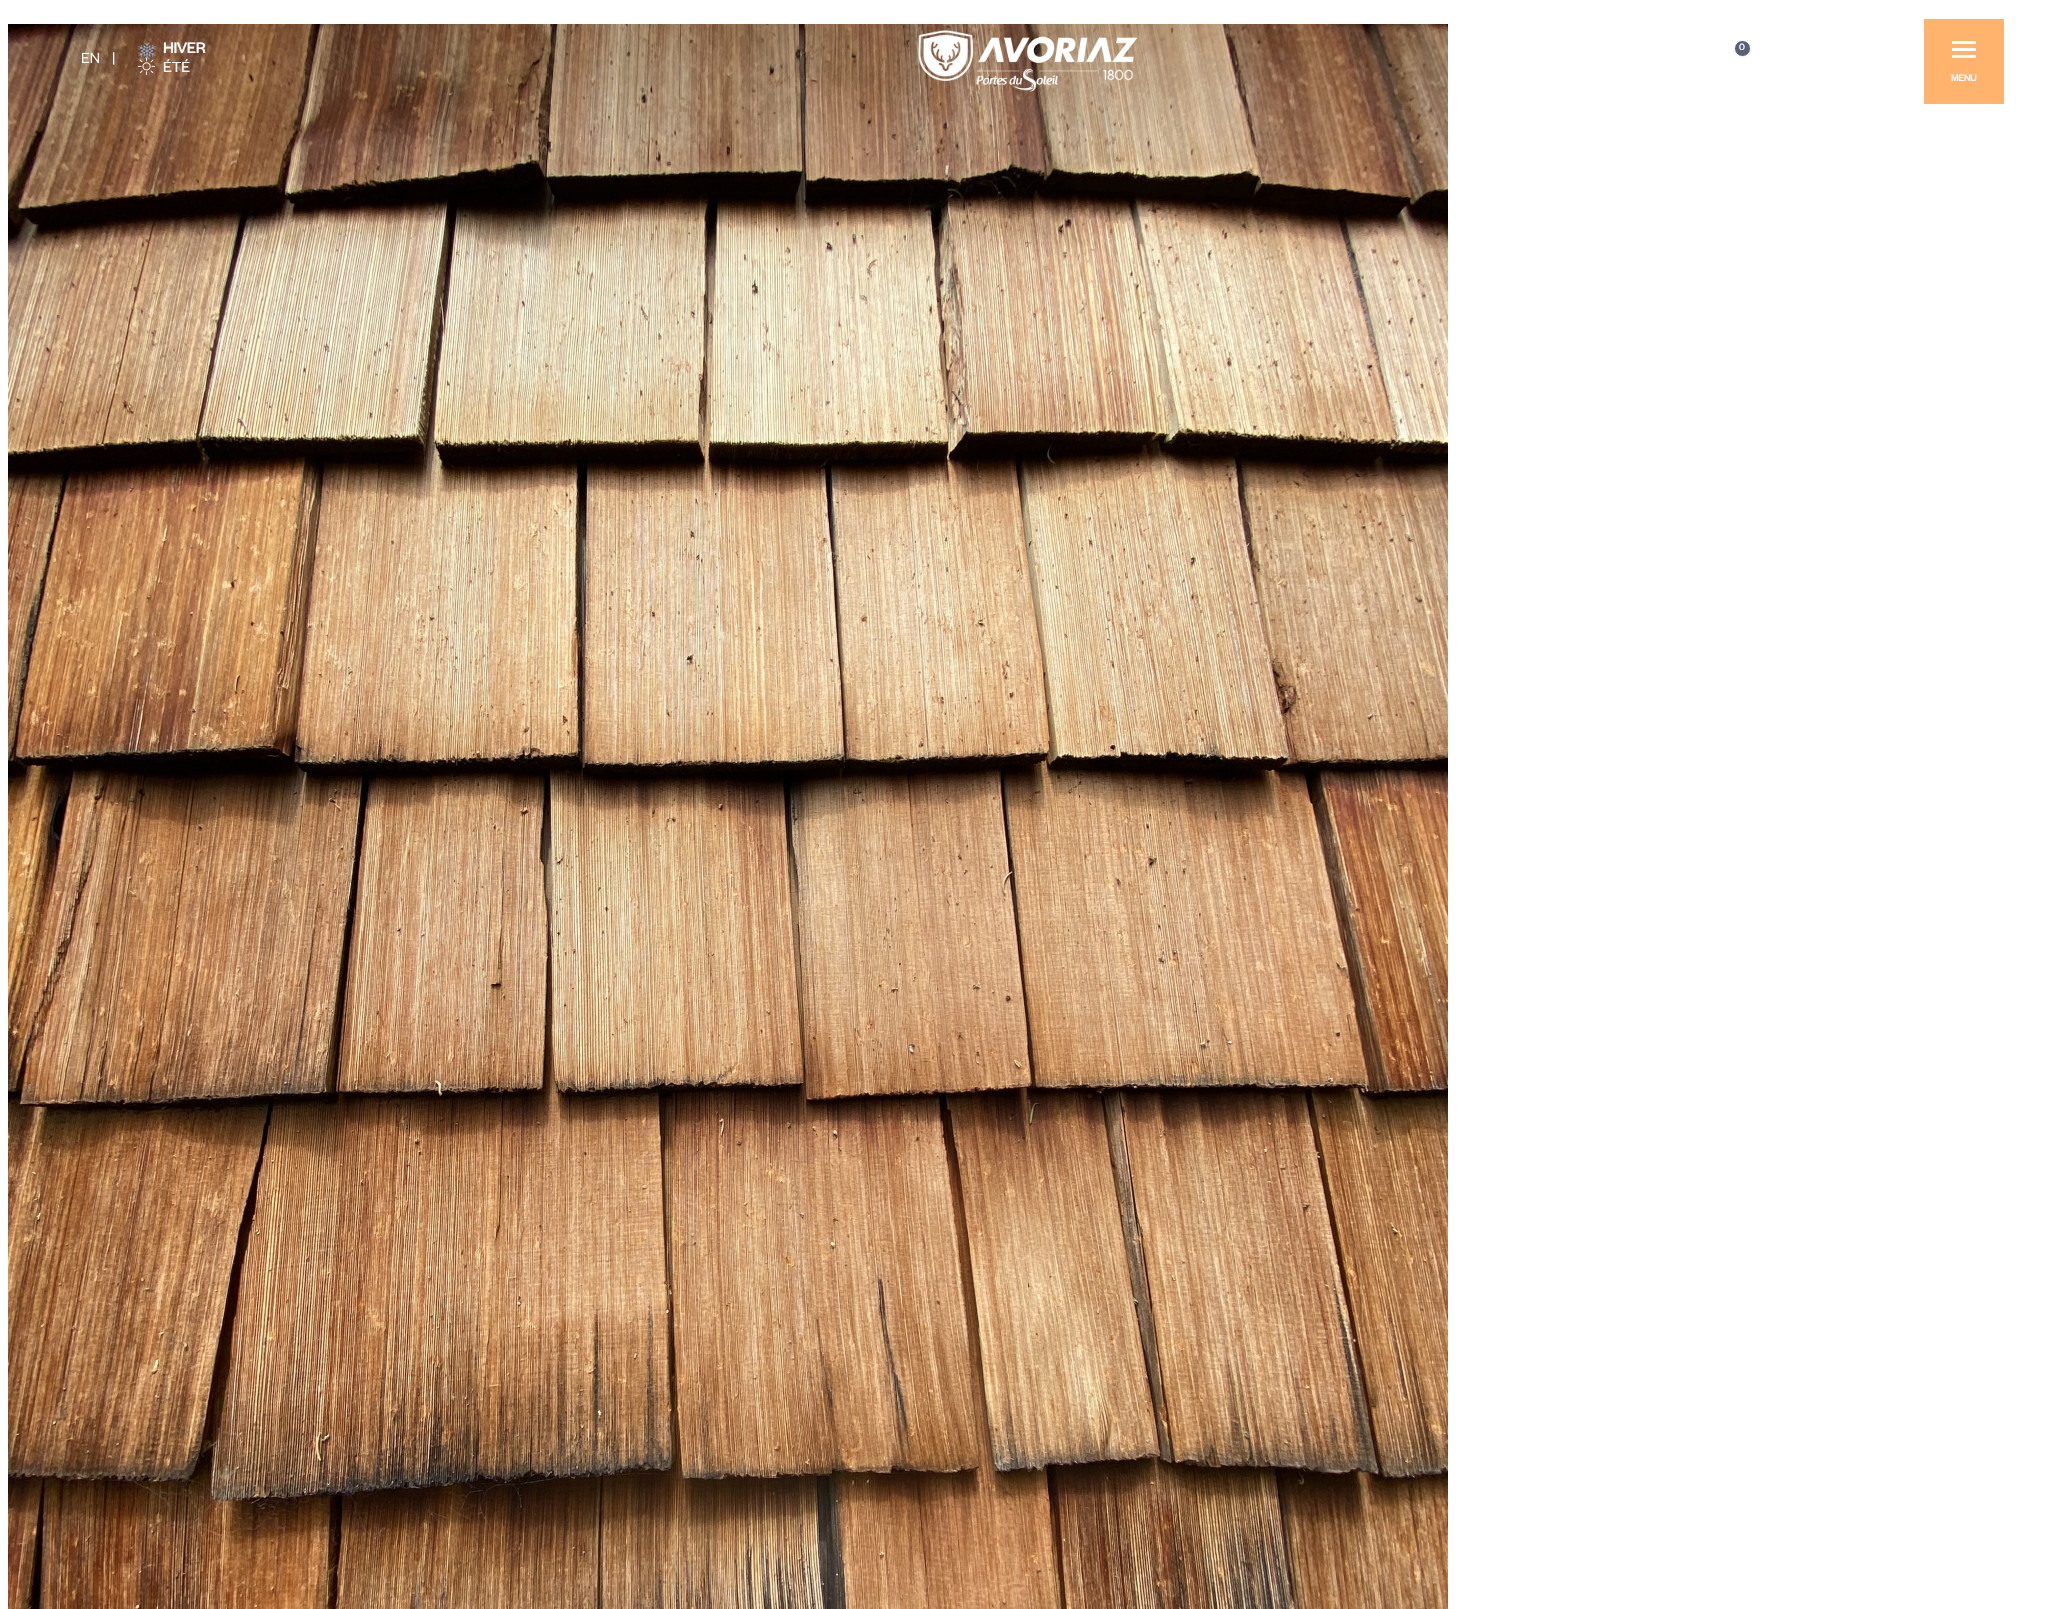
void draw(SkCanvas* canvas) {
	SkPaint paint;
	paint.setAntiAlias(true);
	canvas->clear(0xffffffff);
	canvas->drawImageRect(SkImages::DeferredFromEncodedData(SkData::MakeFromFileName("img1.png")), SkRect::MakeXYWH(8, 24, 1440, 1585), SkSamplingOptions());
	canvas->drawImageRect(SkImages::DeferredFromEncodedData(SkData::MakeFromFileName("img2.png")), SkRect::MakeXYWH(81, 52, 18, 11), SkSamplingOptions());
	SkFont f1(fontMgr->matchFamilyStyle("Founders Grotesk", SkFontStyle::Normal()), 16);
	f1.setSubpixel(true);
	paint.setColor(0xffffffff);
	canvas->drawString("|", 112, 63, f1, paint);
	canvas->drawImageRect(SkImages::DeferredFromEncodedData(SkData::MakeFromFileName("img3.png")), SkRect::MakeXYWH(138, 42, 18, 18), SkSamplingOptions());
	SkFont f2(fontMgr->matchFamilyStyle("Founders Grotesk", SkFontStyle::Bold()), 16);
	f2.setSubpixel(true);
	canvas->drawString("HIVER", 163, 53, f2, paint);
	canvas->drawImageRect(SkImages::DeferredFromEncodedData(SkData::MakeFromFileName("img4.png")), SkRect::MakeXYWH(138, 57, 18, 18), SkSamplingOptions());
	canvas->drawString("ÉTÉ", 163, 72, f1, paint);
	canvas->drawImageRect(SkImages::DeferredFromEncodedData(SkData::MakeFromFileName("img5.png")), SkRect::MakeXYWH(918, 30, 220, 62), SkSamplingOptions());
	paint.setColor(0xff57617a);
	canvas->drawCircle(1742.5, 48.5, 8, paint);
	paint.setStroke(true);
	paint.setStrokeWidth(1);
	paint.setColor(0xffffffff);
	canvas->drawCircle(1742.5, 48.5, 8, paint);
	SkFont f3(fontMgr->matchFamilyStyle("Founders Grotesk", SkFontStyle::Normal()), 10);
	f3.setSubpixel(true);
	paint.setStroke(false);
	canvas->drawString("0", 1739, 50, f3, paint);
	paint.setColor(0xffffb36d);
	canvas->drawRect(SkRect::MakeXYWH(1924, 19, 80, 85), paint);
	paint.setColor(0xffffffff);
	canvas->drawRect(SkRect::MakeXYWH(1952, 41, 24, 3), paint);
	canvas->drawRect(SkRect::MakeXYWH(1952, 48, 24, 3), paint);
	canvas->drawRect(SkRect::MakeXYWH(1952, 55, 24, 3), paint);
	SkFont f4(fontMgr->matchFamilyStyle("Founders Grotesk", SkFontStyle::Bold()), 10);
	f4.setSubpixel(true);
	canvas->drawString("MENU", 1951, 81, f4, paint);
}
